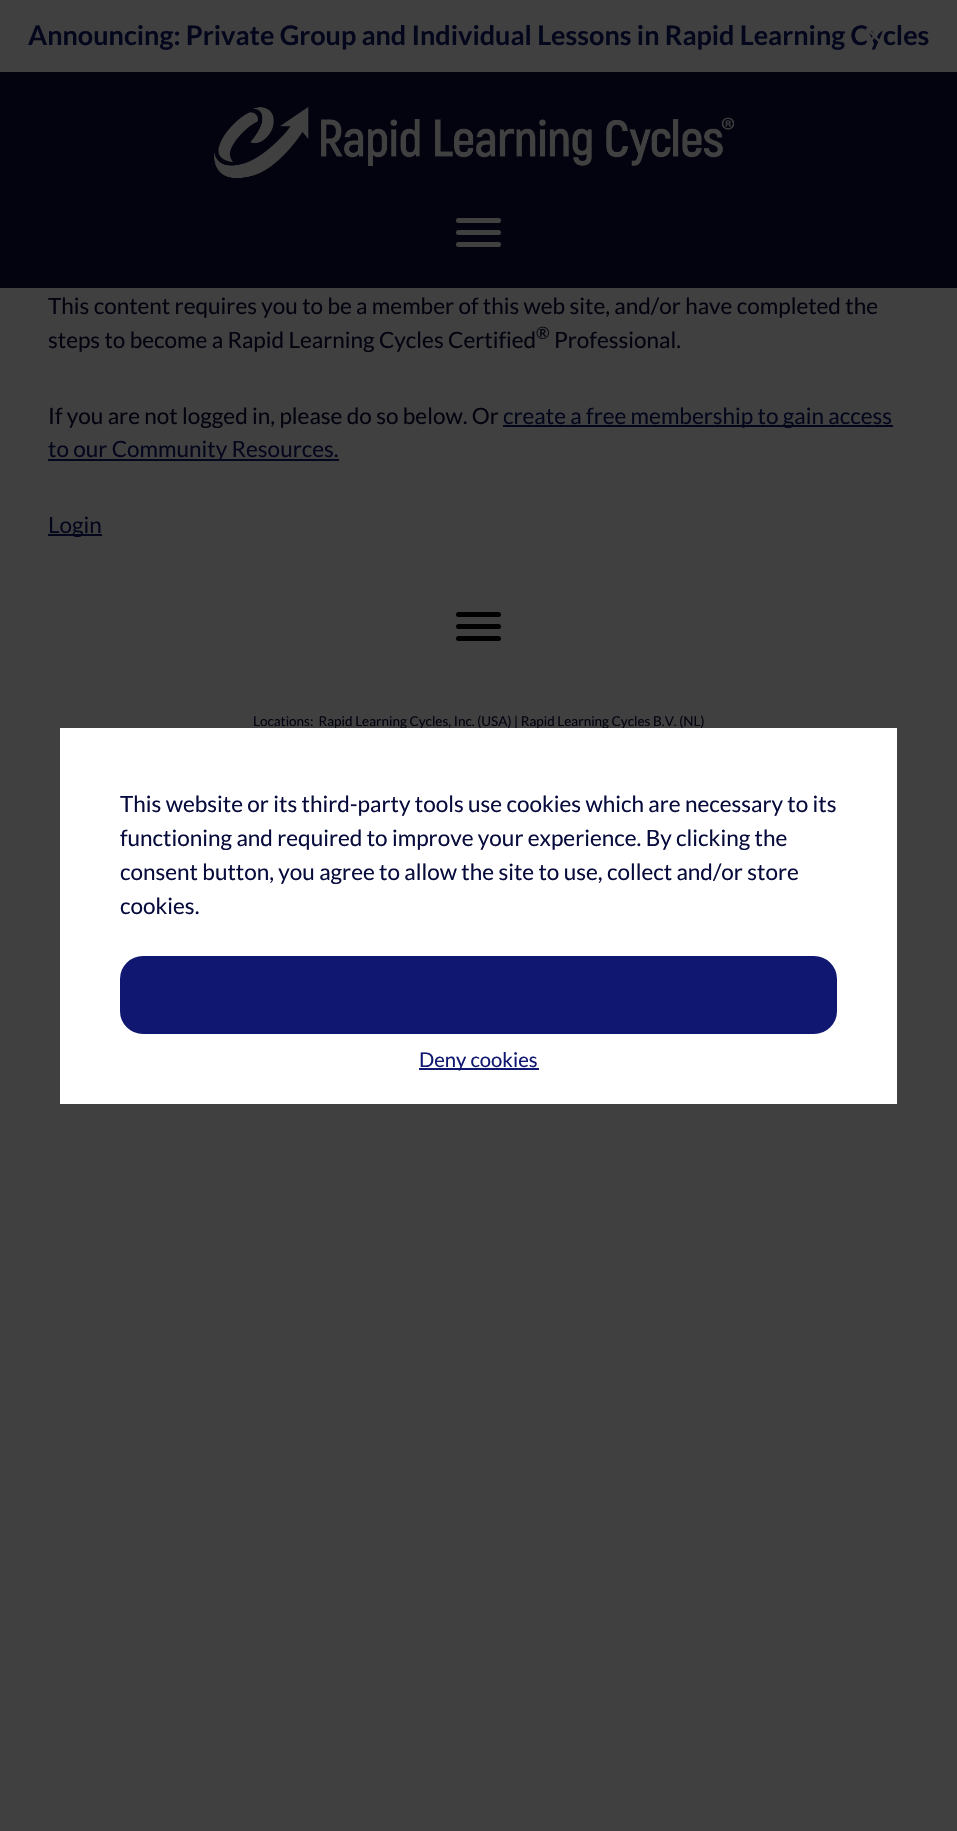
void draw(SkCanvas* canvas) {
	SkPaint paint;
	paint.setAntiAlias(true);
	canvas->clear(0xff404040);
	SkFont f1(fontMgr->matchFamilyStyle("Lato", SkFontStyle::Bold()), 27);
	f1.setSubpixel(true);
	paint.setColor(0xff04061c);
	canvas->drawString("Announcing: Private Group and Individual Lessons in Rapid Learning Cycles", 28, 45, f1, paint);
	canvas->drawImageRect(SkImages::DeferredFromEncodedData(SkData::MakeFromFileName("img1.png")), SkRect::MakeXYWH(865, 27, 17, 17), SkSamplingOptions());
	paint.setColor(0xff02030f);
	canvas->drawRect(SkRect::MakeXYWH(0, 72, 957, 216), paint);
	canvas->drawImageRect(SkImages::DeferredFromEncodedData(SkData::MakeFromFileName("img2.png")), SkRect::MakeXYWH(214, 107, 521, 72), SkSamplingOptions());
	paint.setColor(0xff404040);
	canvas->drawRoundRect(SkRect::MakeXYWH(456, 230, 45, 5), 2.5, 2.5, paint);
	canvas->drawRoundRect(SkRect::MakeXYWH(456, 218, 45, 5), 2.5, 2.5, paint);
	canvas->drawRoundRect(SkRect::MakeXYWH(456, 242, 45, 5), 2.5, 2.5, paint);
	SkFont f2(fontMgr->matchFamilyStyle("Lato", SkFontStyle::Normal()), 22.5);
	f2.setSubpixel(true);
	paint.setColor(0xff02030f);
	canvas->drawString("This content requires you to be a member of this web site, and/or have completed the", 48, 314, f2, paint);
	canvas->drawString("steps to become a Rapid Learning Cycles Certified", 48, 348, f2, paint);
	SkFont f3(fontMgr->matchFamilyStyle("Lato", SkFontStyle::Normal()), 17);
	f3.setSubpixel(true);
	canvas->drawString("®", 536, 339, f3, paint);
	canvas->drawString("Professional.", 554, 348, f2, paint);
	canvas->drawString("If you are not logged in, please do so below. Or", 48, 424, f2, paint);
	paint.setColor(0xff04061c);
	canvas->drawRect(SkRect::MakeXYWH(503, 425, 390, 2), paint);
	canvas->drawString("create a free membership to gain access", 503, 424, f2, paint);
	canvas->drawRect(SkRect::MakeXYWH(48, 459, 291, 2), paint);
	canvas->drawString("to our Community Resources.", 48, 457, f2, paint);
	canvas->drawRect(SkRect::MakeXYWH(48, 534, 54, 2), paint);
	canvas->drawString("Login", 48, 533, f2, paint);
	paint.setColor(0xff000000);
	canvas->drawRoundRect(SkRect::MakeXYWH(456, 624, 45, 5), 2.5, 2.5, paint);
	canvas->drawRoundRect(SkRect::MakeXYWH(456, 612, 45, 5), 2.5, 2.5, paint);
	canvas->drawRoundRect(SkRect::MakeXYWH(456, 636, 45, 5), 2.5, 2.5, paint);
	SkFont f4(fontMgr->matchFamilyStyle("Lato", SkFontStyle::Normal()), 13.5);
	f4.setSubpixel(true);
	paint.setColor(0xff02030f);
	canvas->drawString("Locations:  Rapid Learning Cycles, Inc. (USA) | Rapid Learning Cycles B.V. (NL)", 253, 726, f4, paint);
	paint.setColor(0xffffffff);
	canvas->drawRect(SkRect::MakeXYWH(60, 728, 837, 376), paint);
	paint.setColor(0xff080c3d);
	canvas->drawString("This website or its third-party tools use cookies which are necessary to its", 120, 812, f2, paint);
	canvas->drawString("functioning and required to improve your experience. By clicking the", 120, 846, f2, paint);
	canvas->drawString("consent button, you agree to allow the site to use, collect and/or store", 120, 880, f2, paint);
	canvas->drawString("cookies.", 120, 914, f2, paint);
	paint.setColor(0xff0f1770);
	canvas->drawRoundRect(SkRect::MakeXYWH(121, 957, 715, 76), 22, 22, paint);
	paint.setStroke(true);
	paint.setStrokeWidth(2);
	canvas->drawRoundRect(SkRect::MakeXYWH(121, 957, 715, 76), 22, 22, paint);
	paint.setStroke(false);
	canvas->drawRect(SkRect::MakeXYWH(419, 1068, 120, 2), paint);
	SkFont f5(fontMgr->matchFamilyStyle("Lato", SkFontStyle::Normal()), 20.25);
	f5.setSubpixel(true);
	canvas->drawString("Deny cookies", 419, 1067, f5, paint);
}
